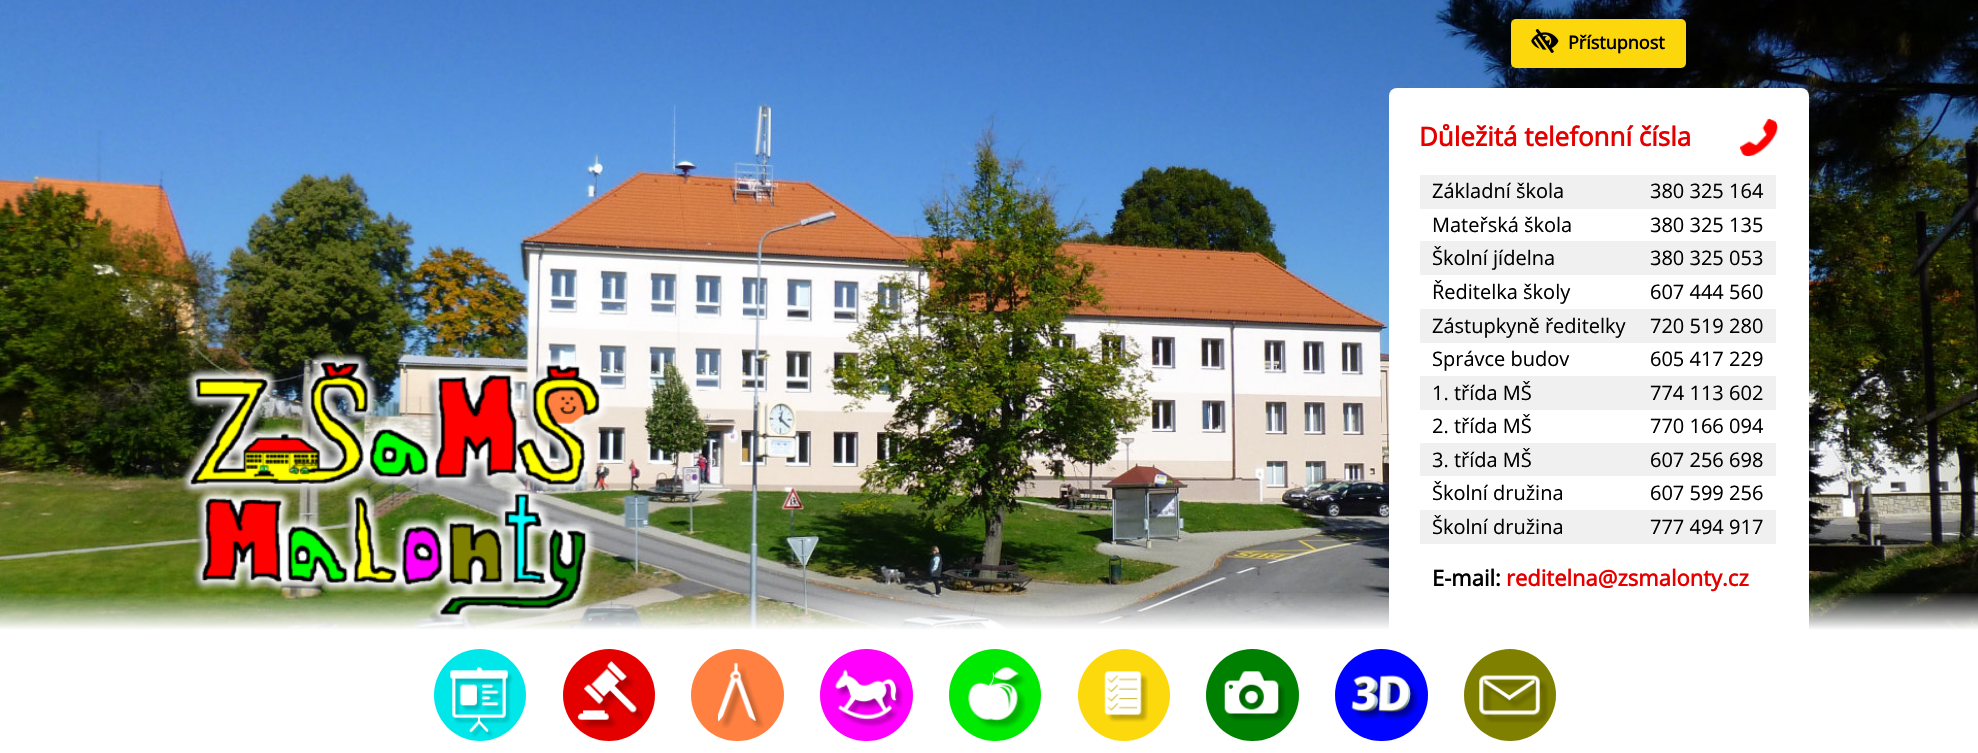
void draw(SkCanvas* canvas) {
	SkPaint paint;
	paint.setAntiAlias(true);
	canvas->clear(0xffffffff);
	canvas->drawImageRect(SkImages::DeferredFromEncodedData(SkData::MakeFromFileName("img1.png")), SkRect::MakeXYWH(0, 0, 1978, 630), SkSamplingOptions());
	paint.setColor(0xfffcd70c);
	canvas->drawRoundRect(SkRect::MakeXYWH(1511, 19, 175, 49), 5, 5, paint);
	canvas->drawImageRect(SkImages::DeferredFromEncodedData(SkData::MakeFromFileName("img2.png")), SkRect::MakeXYWH(1531, 29, 28, 24), SkSamplingOptions());
	SkFont f1(fontMgr->matchFamilyStyle("Open Sans", SkFontStyle::Bold()), 18);
	f1.setSubpixel(true);
	paint.setColor(0xff000000);
	canvas->drawString("Přístupnost", 1568, 49, f1, paint);
	canvas->drawImageRect(SkImages::DeferredFromEncodedData(SkData::MakeFromFileName("img3.png")), SkRect::MakeXYWH(180, 352, 428, 271), SkSamplingOptions());
	paint.setColor(0xffffffff);
	canvas->drawRoundRect(SkRect::MakeXYWH(1389, 88, 420, 556), 8, 8, paint);
	SkFont f2(fontMgr->matchFamilyStyle("Open Sans", SkFontStyle::Bold()), 26);
	f2.setSubpixel(true);
	paint.setColor(0xffe50000);
	canvas->drawString("Důležitá telefonní čísla", 1419, 146, f2, paint);
	canvas->drawImageRect(SkImages::DeferredFromEncodedData(SkData::MakeFromFileName("img4.png")), SkRect::MakeXYWH(1740, 118, 38, 39), SkSamplingOptions());
	paint.setColor(0xfff0f0f0);
	canvas->drawRect(SkRect::MakeXYWH(1420, 175, 356, 34), paint);
	SkFont f3(fontMgr->matchFamilyStyle("Open Sans", SkFontStyle::Normal()), 20);
	f3.setSubpixel(true);
	paint.setColor(0xff000000);
	canvas->drawString("Základní škola", 1432, 198, f3, paint);
	canvas->drawString("380 325 164", 1650, 198, f3, paint);
	canvas->drawString("Mateřská škola", 1432, 232, f3, paint);
	canvas->drawString("380 325 135", 1650, 232, f3, paint);
	paint.setColor(0xfff0f0f0);
	canvas->drawRect(SkRect::MakeXYWH(1420, 241, 356, 34), paint);
	paint.setColor(0xff000000);
	canvas->drawString("Školní jídelna", 1432, 265, f3, paint);
	canvas->drawString("380 325 053", 1650, 265, f3, paint);
	canvas->drawString("Ředitelka školy", 1432, 299, f3, paint);
	canvas->drawString("607 444 560", 1650, 299, f3, paint);
	paint.setColor(0xfff0f0f0);
	canvas->drawRect(SkRect::MakeXYWH(1420, 309, 356, 34), paint);
	paint.setColor(0xff000000);
	canvas->drawString("Zástupkyně ředitelky", 1432, 333, f3, paint);
	canvas->drawString("720 519 280", 1650, 333, f3, paint);
	canvas->drawString("Správce budov", 1432, 366, f3, paint);
	canvas->drawString("605 417 229", 1650, 366, f3, paint);
	paint.setColor(0xfff0f0f0);
	canvas->drawRect(SkRect::MakeXYWH(1420, 376, 356, 34), paint);
	paint.setColor(0xff000000);
	canvas->drawString("1. třída MŠ", 1432, 400, f3, paint);
	canvas->drawString("774 113 602", 1650, 400, f3, paint);
	canvas->drawString("2. třída MŠ", 1432, 433, f3, paint);
	canvas->drawString("770 166 094", 1650, 433, f3, paint);
	paint.setColor(0xfff0f0f0);
	canvas->drawRect(SkRect::MakeXYWH(1420, 443, 356, 33), paint);
	paint.setColor(0xff000000);
	canvas->drawString("3. třída MŠ", 1432, 467, f3, paint);
	canvas->drawString("607 256 698", 1650, 467, f3, paint);
	canvas->drawString("Školní družina", 1432, 500, f3, paint);
	canvas->drawString("607 599 256", 1650, 500, f3, paint);
	paint.setColor(0xfff0f0f0);
	canvas->drawRect(SkRect::MakeXYWH(1420, 510, 356, 34), paint);
	paint.setColor(0xff000000);
	canvas->drawString("Školní družina", 1432, 534, f3, paint);
	canvas->drawString("777 494 917", 1650, 534, f3, paint);
	SkFont f4(fontMgr->matchFamilyStyle("Open Sans", SkFontStyle::Bold()), 22);
	f4.setSubpixel(true);
	canvas->drawString("E-mail:", 1432, 586, f4, paint);
	paint.setColor(0xffe50000);
	canvas->drawString("reditelna@zsmalonty.cz", 1506, 586, f4, paint);
	paint.setColor(0xff00e7e9);
	canvas->drawCircle(480, 695, 46, paint);
	canvas->drawImageRect(SkImages::DeferredFromEncodedData(SkData::MakeFromFileName("img5.png")), SkRect::MakeXYWH(450, 667, 63, 70), SkSamplingOptions());
	paint.setColor(0xffe50000);
	canvas->drawCircle(609, 695, 46, paint);
	canvas->drawImageRect(SkImages::DeferredFromEncodedData(SkData::MakeFromFileName("img6.png")), SkRect::MakeXYWH(577, 661, 68, 68), SkSamplingOptions());
	paint.setColor(0xffff8040);
	canvas->drawRoundRect(SkRect::MakeXYWH(691, 649, 93, 92), 46, 46, paint);
	canvas->drawImageRect(SkImages::DeferredFromEncodedData(SkData::MakeFromFileName("img7.png")), SkRect::MakeXYWH(718, 663, 46, 65), SkSamplingOptions());
	paint.setColor(0xffff00fc);
	canvas->drawRoundRect(SkRect::MakeXYWH(820, 649, 93, 92), 46, 46, paint);
	canvas->drawImageRect(SkImages::DeferredFromEncodedData(SkData::MakeFromFileName("img8.png")), SkRect::MakeXYWH(835, 669, 68, 58), SkSamplingOptions());
	paint.setColor(0xff00ea01);
	canvas->drawCircle(995, 695, 46, paint);
	canvas->drawImageRect(SkImages::DeferredFromEncodedData(SkData::MakeFromFileName("img9.png")), SkRect::MakeXYWH(968, 667, 58, 62), SkSamplingOptions());
	paint.setColor(0xfffcd90c);
	canvas->drawCircle(1124, 695, 46, paint);
	canvas->drawImageRect(SkImages::DeferredFromEncodedData(SkData::MakeFromFileName("img10.png")), SkRect::MakeXYWH(1104, 671, 44, 51), SkSamplingOptions());
	paint.setColor(0xff008001);
	canvas->drawRoundRect(SkRect::MakeXYWH(1206, 649, 93, 92), 46, 46, paint);
	canvas->drawImageRect(SkImages::DeferredFromEncodedData(SkData::MakeFromFileName("img11.png")), SkRect::MakeXYWH(1224, 671, 61, 50), SkSamplingOptions());
	paint.setColor(0xff0003ff);
	canvas->drawRoundRect(SkRect::MakeXYWH(1335, 649, 93, 92), 46, 46, paint);
	canvas->drawImageRect(SkImages::DeferredFromEncodedData(SkData::MakeFromFileName("img12.png")), SkRect::MakeXYWH(1351, 675, 67, 45), SkSamplingOptions());
	paint.setColor(0xff808000);
	canvas->drawCircle(1510, 695, 46, paint);
	canvas->drawImageRect(SkImages::DeferredFromEncodedData(SkData::MakeFromFileName("img13.png")), SkRect::MakeXYWH(1479, 675, 69, 48), SkSamplingOptions());
}
